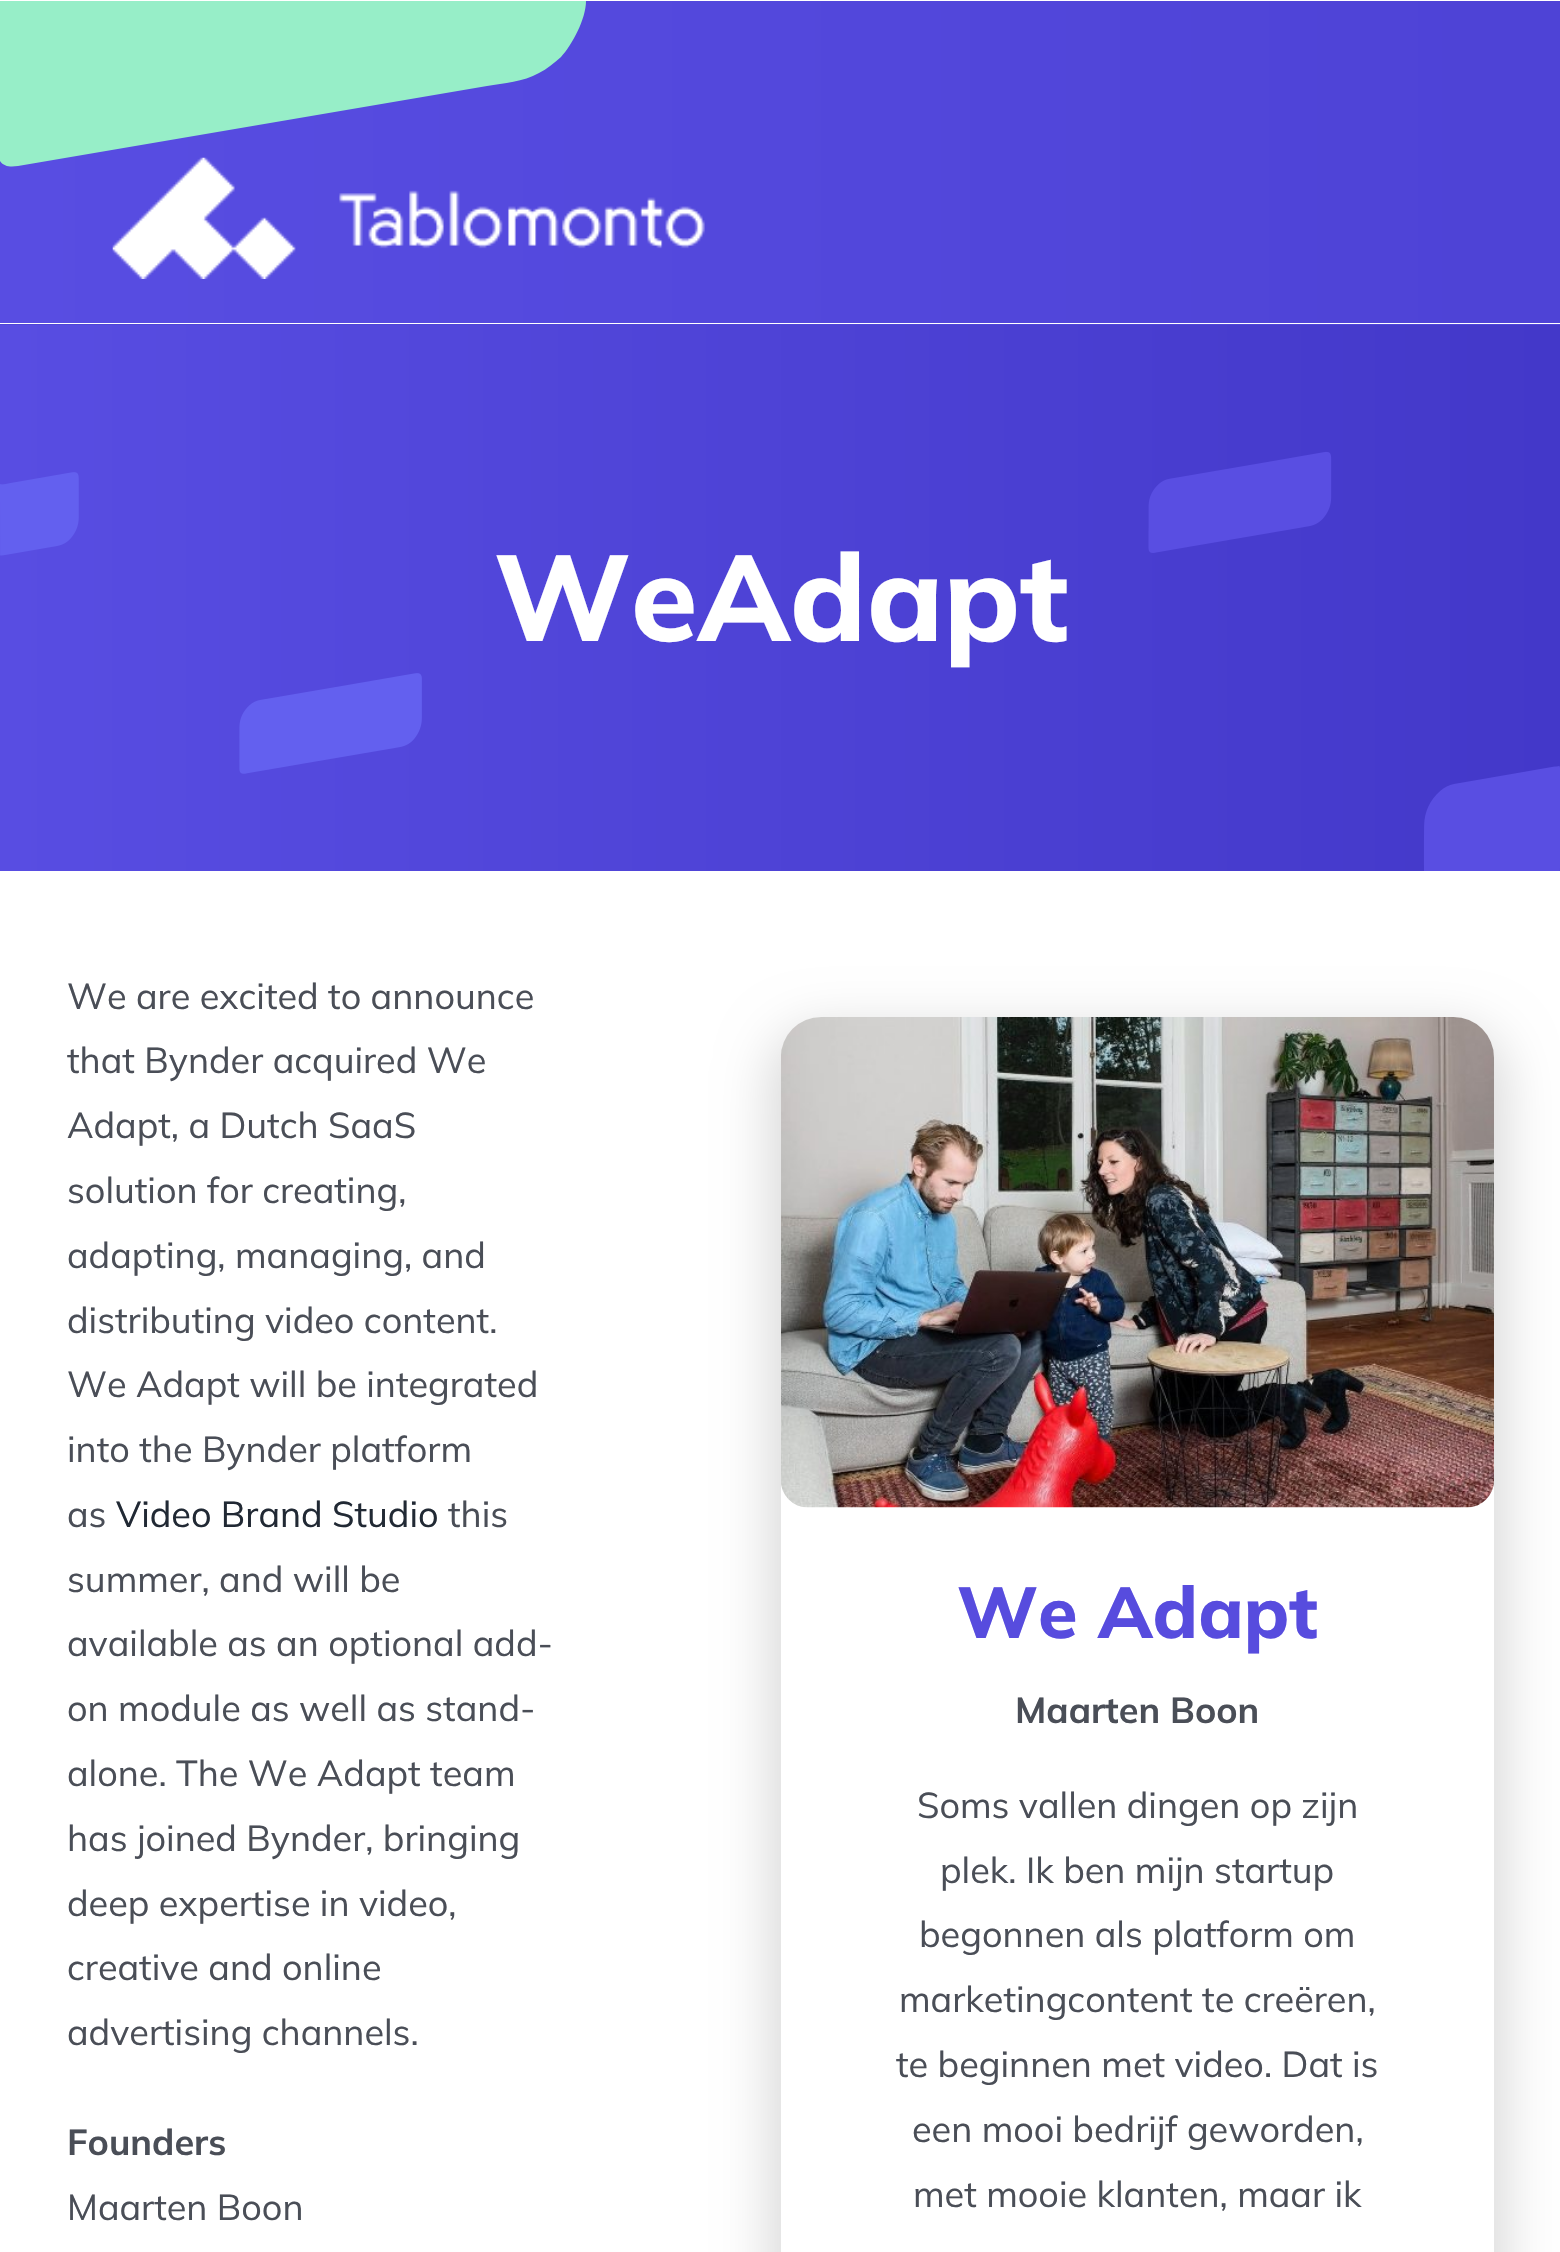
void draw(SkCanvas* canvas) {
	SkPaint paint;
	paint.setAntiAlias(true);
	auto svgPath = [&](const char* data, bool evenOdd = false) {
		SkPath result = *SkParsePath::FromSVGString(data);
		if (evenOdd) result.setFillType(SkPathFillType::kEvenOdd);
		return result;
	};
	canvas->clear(0xffffffff);
	{
		const SkColor colors[] = {0xff584de2, 0xff4338c9};
		const float stops[] = {0, 1};
		const SkPoint ends[] = {{0, 162}, {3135, 162}};
		paint.setShader(SkGradientShader::MakeLinear(ends, colors, stops, 2, SkTileMode::kClamp));
		paint.setAlpha(255);
	}
	canvas->drawRect(SkRect::MakeXYWH(0, 1, 1560, 322), paint);
	paint.setShader(nullptr);
	paint.setColor(0xff97eec8);
	canvas->drawPath(svgPath("M0 161C4 167 11 167 18 166L487 86C504 83 523 82 539 73C547 69 554 63 561 57C572 45 586 19 586 1H0Z"), paint);
	canvas->drawImageRect(SkImages::DeferredFromEncodedData(SkData::MakeFromFileName("img1.png")), SkRect::MakeXYWH(112, 157, 593, 122), SkSamplingOptions());
	paint.setColor(0xff4f45d7);
	canvas->drawRect(SkRect::MakeXYWH(0, 324, 1560, 1), paint);
	canvas->drawImageRect(SkImages::DeferredFromEncodedData(SkData::MakeFromFileName("img2.png")), SkRect::MakeXYWH(0, 325, 1560, 546), SkSamplingOptions());
	SkFont f1(fontMgr->matchFamilyStyle("Mulish", SkFontStyle(800, SkFontStyle::kNormal_Width, SkFontStyle::kUpright_Slant)), 121.5);
	f1.setSubpixel(true);
	paint.setColor(0xffffffff);
	canvas->drawString("WeAdapt", 494, 641, f1, paint);
	SkFont f2(fontMgr->matchFamilyStyle("Mulish", SkFontStyle::Normal()), 36);
	f2.setSubpixel(true);
	paint.setColor(0xff4a4e57);
	canvas->drawString("We are excited to announce", 67, 1009, f2, paint);
	canvas->drawString("that Bynder acquired We", 67, 1073, f2, paint);
	canvas->drawString("Adapt, a Dutch SaaS", 67, 1138, f2, paint);
	canvas->drawString("solution for creating,", 67, 1203, f2, paint);
	canvas->drawString("adapting, managing, and", 67, 1268, f2, paint);
	canvas->drawString("distributing video content.", 67, 1333, f2, paint);
	canvas->drawString("We Adapt will be integrated", 67, 1397, f2, paint);
	canvas->drawString("into the Bynder platform", 67, 1462, f2, paint);
	canvas->drawString("as", 67, 1527, f2, paint);
	paint.setColor(0xff212934);
	canvas->drawString("Video Brand Studio", 116, 1527, f2, paint);
	paint.setColor(0xff4a4e57);
	canvas->drawString("this", 448, 1527, f2, paint);
	canvas->drawString("summer, and will be", 67, 1592, f2, paint);
	canvas->drawString("available as an optional add-", 67, 1656, f2, paint);
	canvas->drawString("on module as well as stand-", 67, 1721, f2, paint);
	canvas->drawString("alone. The We Adapt team", 67, 1786, f2, paint);
	canvas->drawString("has joined Bynder, bringing", 67, 1851, f2, paint);
	canvas->drawString("deep expertise in video,", 67, 1916, f2, paint);
	canvas->drawString("creative and online", 67, 1980, f2, paint);
	canvas->drawString("advertising channels.", 67, 2045, f2, paint);
	SkFont f3(fontMgr->matchFamilyStyle("Mulish", SkFontStyle::Bold()), 36);
	f3.setSubpixel(true);
	canvas->drawString("Founders", 67, 2155, f3, paint);
	canvas->drawString("Maarten Boon", 67, 2220, f2, paint);
	paint.setColor(0x26000000);
	paint.setMaskFilter(SkMaskFilter::MakeBlur(kNormal_SkBlurStyle, 26));
	canvas->drawRoundRect(SkRect::MakeXYWH(770, 1028, 735, 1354), 52, 52, paint);
	paint.setMaskFilter(nullptr);
	paint.setColor(0xffffffff);
	canvas->drawRoundRect(SkRect::MakeXYWH(781, 1017, 713, 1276), 41, 41, paint);
	canvas->drawImageRect(SkImages::DeferredFromEncodedData(SkData::MakeFromFileName("img3.png")), SkRect::MakeXYWH(781, 1017, 713, 491), SkSamplingOptions());
	SkFont f4(fontMgr->matchFamilyStyle("Mulish", SkFontStyle(800, SkFontStyle::kNormal_Width, SkFontStyle::kUpright_Slant)), 72);
	f4.setSubpixel(true);
	paint.setColor(0xff574cde);
	canvas->drawString("We Adapt", 957, 1638, f4, paint);
	paint.setColor(0xff4a4e57);
	canvas->drawString("Maarten Boon", 1015, 1723, f3, paint);
	canvas->drawString("Soms vallen dingen op zijn", 917, 1818, f2, paint);
	canvas->drawString("plek. Ik ben mijn startup", 940, 1883, f2, paint);
	canvas->drawString("begonnen als platform om", 919, 1947, f2, paint);
	canvas->drawString("marketingcontent te creëren,", 899, 2012, f2, paint);
	canvas->drawString("te beginnen met video. Dat is", 896, 2077, f2, paint);
	canvas->drawString("een mooi bedrijf geworden,", 912, 2142, f2, paint);
	canvas->drawString("met mooie klanten, maar ik", 913, 2207, f2, paint);
}
